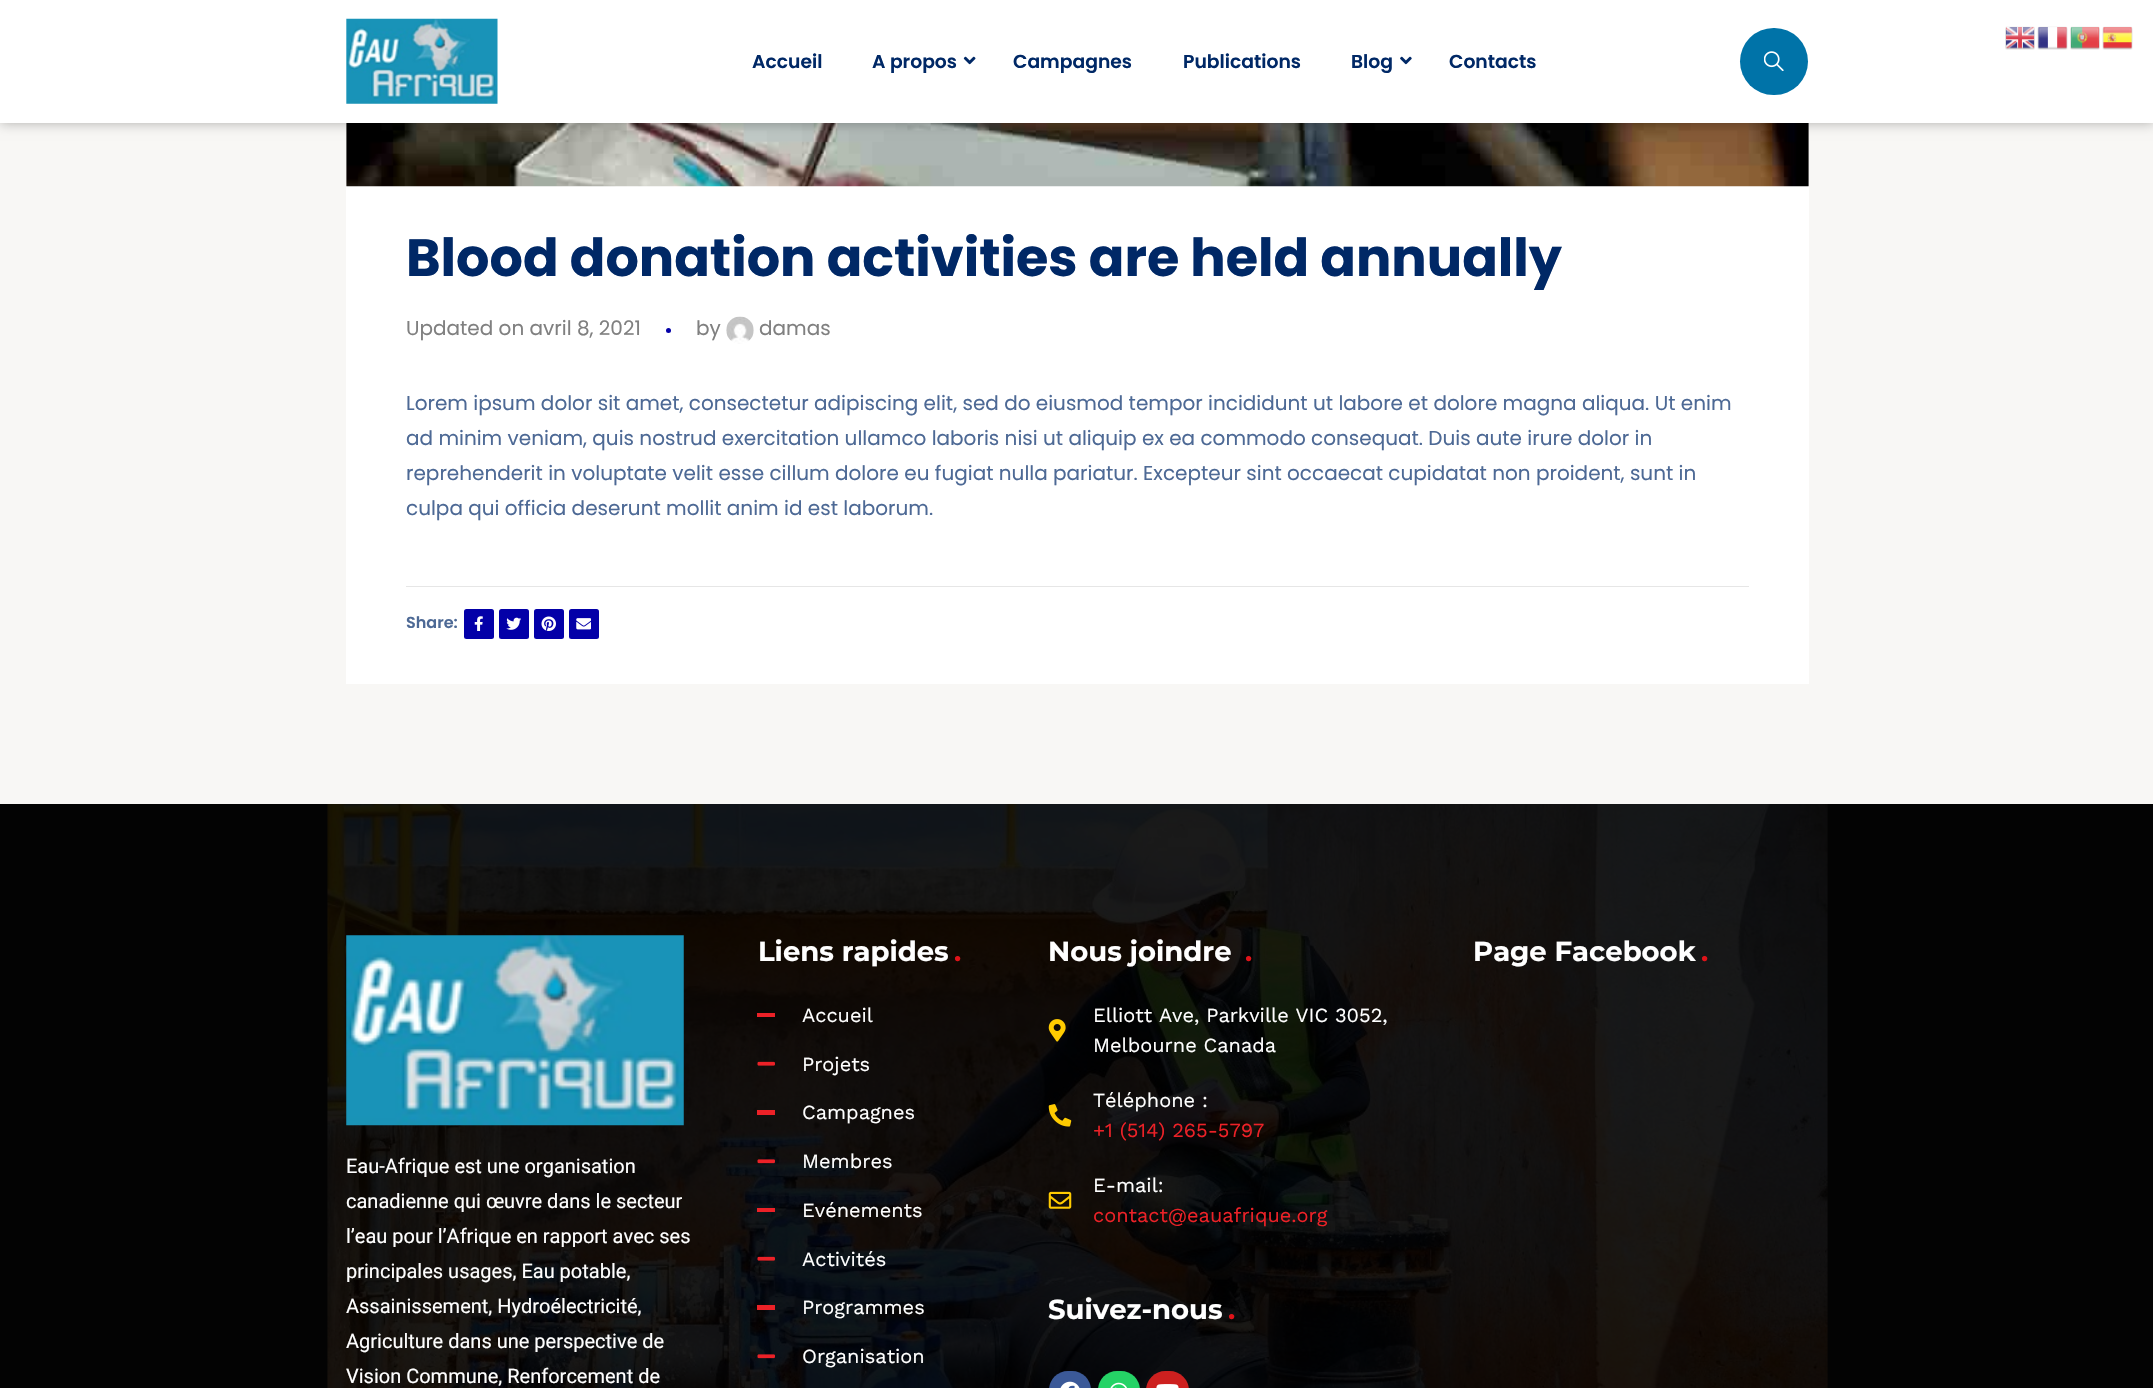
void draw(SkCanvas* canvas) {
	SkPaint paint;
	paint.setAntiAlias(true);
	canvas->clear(0xfff8f7f5);
	paint.setColor(0xffe7e6e4);
	canvas->drawRect(SkRect::MakeXYWH(346, 123, 1463, 63), paint);
	paint.setColor(0xffffffff);
	canvas->drawRect(SkRect::MakeXYWH(346, 186, 1463, 498), paint);
	canvas->drawImageRect(SkImages::DeferredFromEncodedData(SkData::MakeFromFileName("img9.png")), SkRect::MakeXYWH(346, 123, 1463, 64), SkSamplingOptions());
	paint.setColor(0x4d000000);
	paint.setMaskFilter(SkMaskFilter::MakeBlur(kNormal_SkBlurStyle, 6));
	canvas->drawRect(SkRect::MakeXYWH(0, 0, 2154, 123), paint);
	paint.setMaskFilter(nullptr);
	paint.setColor(0xffffffff);
	canvas->drawRect(SkRect::MakeXYWH(0, 0, 2153, 123), paint);
	canvas->drawImageRect(SkImages::DeferredFromEncodedData(SkData::MakeFromFileName("img1.png")), SkRect::MakeXYWH(2005, 26, 30, 24), SkSamplingOptions());
	canvas->drawImageRect(SkImages::DeferredFromEncodedData(SkData::MakeFromFileName("img2.png")), SkRect::MakeXYWH(2037, 26, 31, 24), SkSamplingOptions());
	canvas->drawImageRect(SkImages::DeferredFromEncodedData(SkData::MakeFromFileName("img3.png")), SkRect::MakeXYWH(2070, 26, 30, 24), SkSamplingOptions());
	canvas->drawImageRect(SkImages::DeferredFromEncodedData(SkData::MakeFromFileName("img4.png")), SkRect::MakeXYWH(2102, 26, 31, 24), SkSamplingOptions());
	canvas->drawImageRect(SkImages::DeferredFromEncodedData(SkData::MakeFromFileName("img5.png")), SkRect::MakeXYWH(346, 18, 152, 86), SkSamplingOptions());
	SkFont f1(fontMgr->matchFamilyStyle("Poppins", SkFontStyle(600, SkFontStyle::kNormal_Width, SkFontStyle::kUpright_Slant)), 18.75);
	f1.setSubpixel(true);
	paint.setColor(0xff002866);
	canvas->drawString("Accueil", 752, 68, f1, paint);
	canvas->drawString("A propos", 872, 68, f1, paint);
	canvas->drawImageRect(SkImages::DeferredFromEncodedData(SkData::MakeFromFileName("img6.png")), SkRect::MakeXYWH(963, 56, 13, 9), SkSamplingOptions());
	canvas->drawString("Campagnes", 1013, 68, f1, paint);
	canvas->drawString("Publications", 1183, 68, f1, paint);
	canvas->drawString("Blog", 1351, 68, f1, paint);
	canvas->drawImageRect(SkImages::DeferredFromEncodedData(SkData::MakeFromFileName("img7.png")), SkRect::MakeXYWH(1400, 56, 12, 9), SkSamplingOptions());
	canvas->drawString("Contacts", 1449, 68, f1, paint);
	paint.setColor(0xff0073a8);
	canvas->drawRoundRect(SkRect::MakeXYWH(1740, 28, 68, 67), 33.5, 33.5, paint);
	canvas->drawImageRect(SkImages::DeferredFromEncodedData(SkData::MakeFromFileName("img8.png")), SkRect::MakeXYWH(1764, 51, 20, 20), SkSamplingOptions());
	SkFont f2(fontMgr->matchFamilyStyle("Poppins", SkFontStyle::Bold()), 52.5);
	f2.setSubpixel(true);
	paint.setColor(0xff002866);
	canvas->drawString("Blood donation activities are held annually", 406, 276, f2, paint);
	SkFont f3(fontMgr->matchFamilyStyle("Poppins", SkFontStyle::Normal()), 20);
	f3.setSubpixel(true);
	paint.setColor(0xff808080);
	canvas->drawString("Updated on avril 8, 2021", 406, 335, f3, paint);
	paint.setColor(0xff0300a8);
	canvas->drawCircle(668.5, 330.5, 2.5, paint);
	paint.setColor(0xff808080);
	canvas->drawString("by", 696, 335, f3, paint);
	canvas->drawImageRect(SkImages::DeferredFromEncodedData(SkData::MakeFromFileName("img10.png")), SkRect::MakeXYWH(726, 316, 28, 28), SkSamplingOptions());
	canvas->drawString("damas", 759, 335, f3, paint);
	paint.setColor(0xff4d6995);
	canvas->drawString("Lorem ipsum dolor sit amet, consectetur adipiscing elit, sed do eiusmod tempor incididunt ut labore et dolore magna aliqua. Ut enim", 406, 410, f3, paint);
	canvas->drawString("ad minim veniam, quis nostrud exercitation ullamco laboris nisi ut aliquip ex ea commodo consequat. Duis aute irure dolor in", 406, 445, f3, paint);
	canvas->drawString("reprehenderit in voluptate velit esse cillum dolore eu fugiat nulla pariatur. Excepteur sint occaecat cupidatat non proident, sunt in", 406, 480, f3, paint);
	canvas->drawString("culpa qui officia deserunt mollit anim id est laborum.", 406, 515, f3, paint);
	paint.setColor(0xffe6e6e6);
	canvas->drawRect(SkRect::MakeXYWH(406, 586, 1343, 1), paint);
	SkFont f4(fontMgr->matchFamilyStyle("Poppins", SkFontStyle(600, SkFontStyle::kNormal_Width, SkFontStyle::kUpright_Slant)), 16);
	f4.setSubpixel(true);
	paint.setColor(0xff4d6995);
	canvas->drawString("Share:", 406, 628, f4, paint);
	paint.setColor(0xff0300a8);
	canvas->drawRoundRect(SkRect::MakeXYWH(464, 609, 30, 30), 2.5, 2.5, paint);
	canvas->drawImageRect(SkImages::DeferredFromEncodedData(SkData::MakeFromFileName("img11.png")), SkRect::MakeXYWH(474, 616, 9, 15), SkSamplingOptions());
	canvas->drawRoundRect(SkRect::MakeXYWH(499, 609, 30, 30), 2.5, 2.5, paint);
	canvas->drawImageRect(SkImages::DeferredFromEncodedData(SkData::MakeFromFileName("img12.png")), SkRect::MakeXYWH(506, 617, 15, 13), SkSamplingOptions());
	canvas->drawRoundRect(SkRect::MakeXYWH(534, 609, 30, 30), 2.5, 2.5, paint);
	canvas->drawImageRect(SkImages::DeferredFromEncodedData(SkData::MakeFromFileName("img13.png")), SkRect::MakeXYWH(541, 616, 15, 15), SkSamplingOptions());
	canvas->drawRoundRect(SkRect::MakeXYWH(569, 609, 30, 30), 2.5, 2.5, paint);
	canvas->drawImageRect(SkImages::DeferredFromEncodedData(SkData::MakeFromFileName("img14.png")), SkRect::MakeXYWH(576, 618, 15, 12), SkSamplingOptions());
	paint.setColor(0xff030303);
	canvas->drawRect(SkRect::MakeXYWH(0, 804, 2153, 584), paint);
	canvas->drawImageRect(SkImages::DeferredFromEncodedData(SkData::MakeFromFileName("img15.png")), SkRect::MakeXYWH(327, 804, 1501, 584), SkSamplingOptions());
	SkFont f5(fontMgr->matchFamilyStyle("Montserrat", SkFontStyle::Bold()), 27.5);
	f5.setSubpixel(true);
	paint.setColor(0xffffffff);
	canvas->drawString("Liens rapides", 758, 961, f5, paint);
	paint.setColor(0xffe01319);
	canvas->drawString(".", 954, 961, f5, paint);
	paint.setColor(0xffec2127);
	canvas->drawRect(SkRect::MakeXYWH(757, 1013, 18, 4), paint);
	SkFont f6(fontMgr->matchFamilyStyle("Work Sans", SkFontStyle::Normal()), 20);
	f6.setSubpixel(true);
	paint.setColor(0xffffffff);
	canvas->drawString("Accueil", 802, 1022, f6, paint);
	canvas->drawImageRect(SkImages::DeferredFromEncodedData(SkData::MakeFromFileName("img16.png")), SkRect::MakeXYWH(757, 1061, 18, 5), SkSamplingOptions());
	canvas->drawString("Projets", 802, 1071, f6, paint);
	paint.setColor(0xffec2127);
	canvas->drawRect(SkRect::MakeXYWH(757, 1110, 18, 5), paint);
	paint.setColor(0xffffffff);
	canvas->drawString("Campagnes", 802, 1119, f6, paint);
	canvas->drawImageRect(SkImages::DeferredFromEncodedData(SkData::MakeFromFileName("img17.png")), SkRect::MakeXYWH(757, 1159, 18, 5), SkSamplingOptions());
	canvas->drawString("Membres", 802, 1168, f6, paint);
	paint.setColor(0xffec2127);
	canvas->drawRect(SkRect::MakeXYWH(757, 1208, 18, 4), paint);
	paint.setColor(0xffffffff);
	canvas->drawString("Evénements", 802, 1217, f6, paint);
	canvas->drawImageRect(SkImages::DeferredFromEncodedData(SkData::MakeFromFileName("img18.png")), SkRect::MakeXYWH(757, 1256, 18, 5), SkSamplingOptions());
	canvas->drawString("Activités", 802, 1266, f6, paint);
	paint.setColor(0xffec2127);
	canvas->drawRect(SkRect::MakeXYWH(757, 1305, 18, 5), paint);
	paint.setColor(0xffffffff);
	canvas->drawString("Programmes", 802, 1314, f6, paint);
	canvas->drawImageRect(SkImages::DeferredFromEncodedData(SkData::MakeFromFileName("img19.png")), SkRect::MakeXYWH(757, 1354, 18, 5), SkSamplingOptions());
	canvas->drawString("Organisation", 802, 1363, f6, paint);
	canvas->drawString("Nous joindre", 1048, 961, f5, paint);
	paint.setColor(0xffe01319);
	canvas->drawString(".", 1245, 961, f5, paint);
	canvas->drawImageRect(SkImages::DeferredFromEncodedData(SkData::MakeFromFileName("img20.png")), SkRect::MakeXYWH(1048, 1019, 18, 23), SkSamplingOptions());
	paint.setColor(0xffffffff);
	canvas->drawString("Elliott Ave, Parkville VIC 3052,", 1093, 1022, f6, paint);
	canvas->drawString("Melbourne Canada", 1093, 1052, f6, paint);
	canvas->drawImageRect(SkImages::DeferredFromEncodedData(SkData::MakeFromFileName("img21.png")), SkRect::MakeXYWH(1048, 1104, 24, 23), SkSamplingOptions());
	canvas->drawString("Téléphone :", 1093, 1107, f6, paint);
	paint.setColor(0xffec2127);
	canvas->drawString("+1 (514) 265-5797", 1093, 1137, f6, paint);
	canvas->drawImageRect(SkImages::DeferredFromEncodedData(SkData::MakeFromFileName("img22.png")), SkRect::MakeXYWH(1048, 1191, 24, 18), SkSamplingOptions());
	paint.setColor(0xffffffff);
	canvas->drawString("E-mail:", 1093, 1192, f6, paint);
	paint.setColor(0xffec2127);
	canvas->drawString("contact@eauafrique.org", 1093, 1222, f6, paint);
	paint.setColor(0xffffffff);
	canvas->drawString("Suivez-nous", 1048, 1319, f5, paint);
	paint.setColor(0xffe01319);
	canvas->drawString(".", 1228, 1319, f5, paint);
	paint.setColor(0xff3b5998);
	canvas->drawRoundRect(SkRect::MakeXYWH(1049, 1371, 42, 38), 21, 21, paint);
	canvas->drawImageRect(SkImages::DeferredFromEncodedData(SkData::MakeFromFileName("img23.png")), SkRect::MakeXYWH(1060, 1381, 20, 7), SkSamplingOptions());
	paint.setColor(0xff25d366);
	canvas->drawRoundRect(SkRect::MakeXYWH(1098, 1371, 42, 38), 21, 21, paint);
	canvas->drawImageRect(SkImages::DeferredFromEncodedData(SkData::MakeFromFileName("img24.png")), SkRect::MakeXYWH(1110, 1382, 17, 6), SkSamplingOptions());
	paint.setColor(0xffcd201f);
	canvas->drawRoundRect(SkRect::MakeXYWH(1146, 1371, 43, 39), 21.5, 21.5, paint);
	canvas->drawImageRect(SkImages::DeferredFromEncodedData(SkData::MakeFromFileName("img25.png")), SkRect::MakeXYWH(1156, 1384, 23, 4), SkSamplingOptions());
	paint.setColor(0xffffffff);
	canvas->drawString("Page Facebook", 1473, 961, f5, paint);
	paint.setColor(0xffe01319);
	canvas->drawString(".", 1701, 961, f5, paint);
	canvas->drawImageRect(SkImages::DeferredFromEncodedData(SkData::MakeFromFileName("img26.png")), SkRect::MakeXYWH(346, 935, 338, 191), SkSamplingOptions());
	SkFont f7(fontMgr->matchFamilyStyle("Roboto", SkFontStyle::Normal()), 20);
	f7.setSubpixel(true);
	paint.setColor(0xffffffff);
	canvas->drawString("Eau-Afrique est une organisation", 346, 1173, f7, paint);
	canvas->drawString("canadienne qui œuvre dans le secteur", 346, 1208, f7, paint);
	canvas->drawString("l’eau pour l’Afrique en rapport avec ses", 346, 1243, f7, paint);
	canvas->drawString("principales usages, Eau potable,", 346, 1278, f7, paint);
	canvas->drawString("Assainissement, Hydroélectricité,", 346, 1313, f7, paint);
	canvas->drawString("Agriculture dans une perspective de", 346, 1348, f7, paint);
	canvas->drawString("Vision Commune, Renforcement de", 346, 1383, f7, paint);
}
